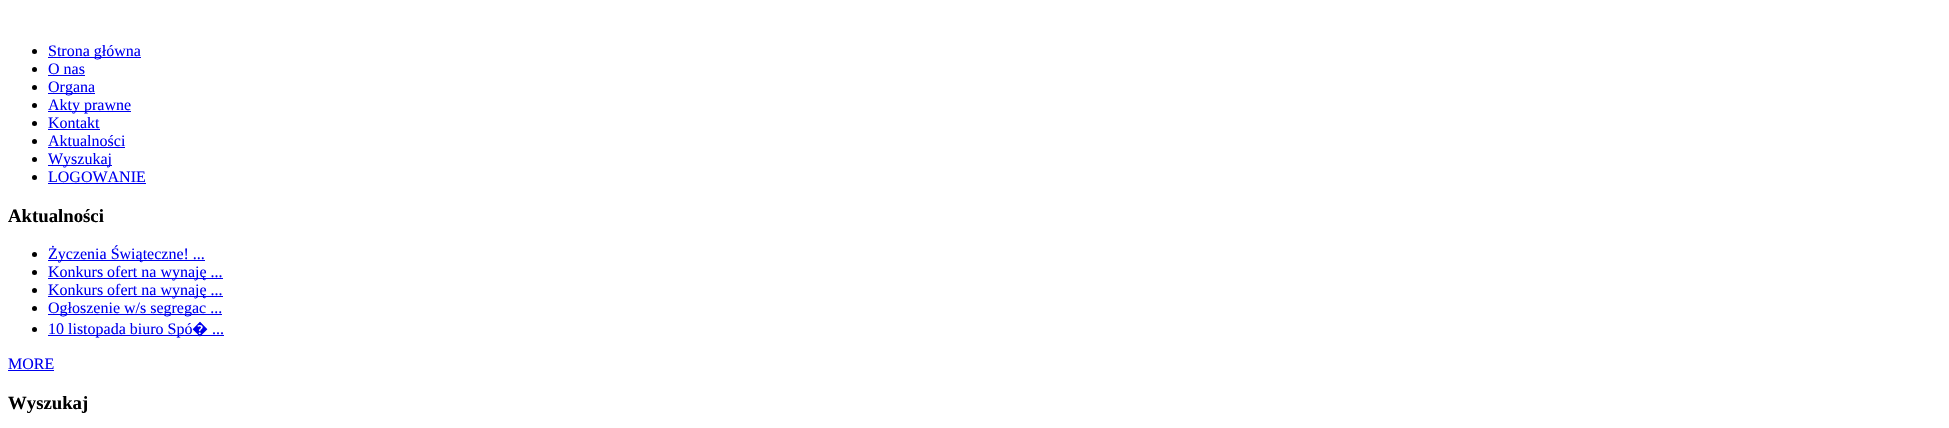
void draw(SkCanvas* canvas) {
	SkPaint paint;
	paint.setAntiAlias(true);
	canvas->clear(0xffffffff);
	paint.setColor(0xff000000);
	canvas->drawCircle(34.5, 51.5, 2.5, paint);
	paint.setColor(0xff0000ee);
	canvas->drawRect(SkRect::MakeXYWH(48, 57, 93, 1), paint);
	SkFont f1(fontMgr->matchFamilyStyle("Liberation Serif", SkFontStyle::Normal()), 16);
	f1.setSubpixel(true);
	canvas->drawString("Strona główna", 48, 56, f1, paint);
	paint.setColor(0xff000000);
	canvas->drawCircle(34.5, 69.5, 2.5, paint);
	paint.setColor(0xff0000ee);
	canvas->drawString("O nas", 48, 74, f1, paint);
	canvas->drawRect(SkRect::MakeXYWH(48, 75, 37, 1), paint);
	paint.setColor(0xff000000);
	canvas->drawCircle(34.5, 87.5, 2.5, paint);
	paint.setColor(0xff0000ee);
	canvas->drawRect(SkRect::MakeXYWH(48, 93, 47, 1), paint);
	canvas->drawString("Organa", 48, 92, f1, paint);
	paint.setColor(0xff000000);
	canvas->drawCircle(34.5, 105.5, 2.5, paint);
	paint.setColor(0xff0000ee);
	canvas->drawRect(SkRect::MakeXYWH(48, 111, 83, 1), paint);
	canvas->drawString("Akty prawne", 48, 110, f1, paint);
	paint.setColor(0xff000000);
	canvas->drawCircle(34.5, 123.5, 2.5, paint);
	paint.setColor(0xff0000ee);
	canvas->drawString("Kontakt", 48, 128, f1, paint);
	canvas->drawRect(SkRect::MakeXYWH(48, 129, 52, 1), paint);
	paint.setColor(0xff000000);
	canvas->drawCircle(34.5, 141.5, 2.5, paint);
	paint.setColor(0xff0000ee);
	canvas->drawString("Aktualności", 48, 146, f1, paint);
	canvas->drawRect(SkRect::MakeXYWH(48, 147, 77, 1), paint);
	paint.setColor(0xff000000);
	canvas->drawCircle(34.5, 159.5, 2.5, paint);
	paint.setColor(0xff0000ee);
	canvas->drawRect(SkRect::MakeXYWH(48, 165, 64, 1), paint);
	canvas->drawString("Wyszukaj", 48, 164, f1, paint);
	paint.setColor(0xff000000);
	canvas->drawCircle(34.5, 177.5, 2.5, paint);
	paint.setColor(0xff0000ee);
	canvas->drawString("LOGOWANIE", 48, 182, f1, paint);
	canvas->drawRect(SkRect::MakeXYWH(48, 183, 98, 1), paint);
	SkFont f2(fontMgr->matchFamilyStyle("Liberation Serif", SkFontStyle::Bold()), 18.75);
	f2.setSubpixel(true);
	paint.setColor(0xff000000);
	canvas->drawString("Aktualności", 8, 222, f2, paint);
	canvas->drawCircle(34.5, 254.5, 2.5, paint);
	paint.setColor(0xff0000ee);
	canvas->drawRect(SkRect::MakeXYWH(48, 260, 157, 1), paint);
	canvas->drawString("Życzenia Świąteczne! ...", 48, 259, f1, paint);
	paint.setColor(0xff000000);
	canvas->drawCircle(34.5, 272.5, 2.5, paint);
	paint.setColor(0xff0000ee);
	canvas->drawRect(SkRect::MakeXYWH(48, 278, 175, 1), paint);
	canvas->drawString("Konkurs ofert na wynaję ...", 48, 277, f1, paint);
	paint.setColor(0xff000000);
	canvas->drawCircle(34.5, 290.5, 2.5, paint);
	paint.setColor(0xff0000ee);
	canvas->drawRect(SkRect::MakeXYWH(48, 296, 175, 1), paint);
	canvas->drawString("Konkurs ofert na wynaję ...", 48, 295, f1, paint);
	paint.setColor(0xff000000);
	canvas->drawCircle(34.5, 308.5, 2.5, paint);
	paint.setColor(0xff0000ee);
	canvas->drawRect(SkRect::MakeXYWH(48, 314, 174, 1), paint);
	canvas->drawString("Ogłoszenie w/s segregac ...", 48, 313, f1, paint);
	paint.setColor(0xff000000);
	canvas->drawCircle(34.5, 329.5, 2.5, paint);
	paint.setColor(0xff0000ee);
	canvas->drawRect(SkRect::MakeXYWH(48, 335, 176, 1), paint);
	canvas->drawString("10 listopada biuro Spó", 48, 334, f1, paint);
	SkFont f3(fontMgr->matchFamilyStyle("Noto Sans", SkFontStyle::Normal()), 16);
	f3.setSubpixel(true);
	canvas->drawString("�", 192, 334, f3, paint);
	canvas->drawString("...", 212, 334, f1, paint);
	canvas->drawString("MORE", 8, 369, f1, paint);
	canvas->drawRect(SkRect::MakeXYWH(8, 370, 46, 1), paint);
	paint.setColor(0xff000000);
	canvas->drawString("Wyszukaj", 8, 409, f2, paint);
}
